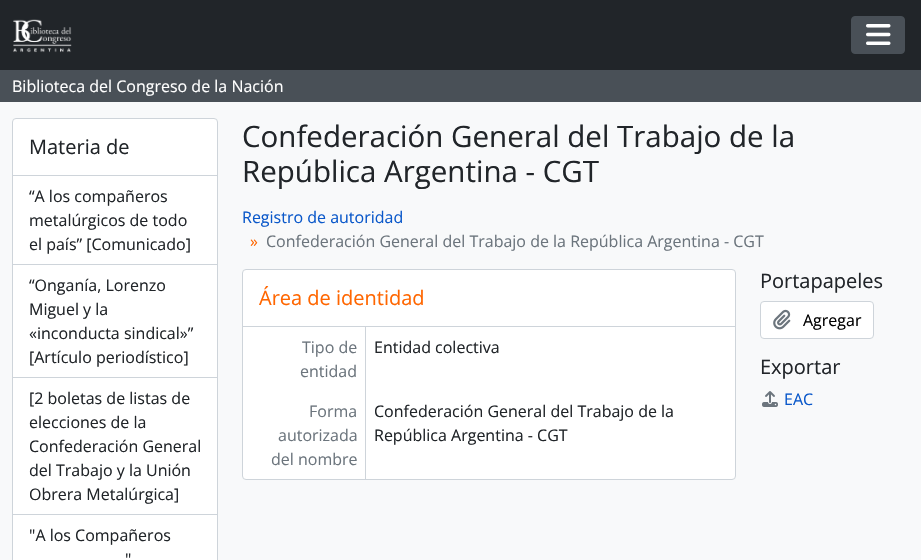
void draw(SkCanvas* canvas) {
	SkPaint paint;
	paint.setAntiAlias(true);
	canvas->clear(0xfff8f9fa);
	paint.setColor(0xff212529);
	canvas->drawRect(SkRect::MakeXYWH(0, 0, 921, 70), paint);
	canvas->drawImageRect(SkImages::DeferredFromEncodedData(SkData::MakeFromFileName("img1.png")), SkRect::MakeXYWH(13, 19, 59, 34), SkSamplingOptions());
	paint.setColor(0xff495057);
	canvas->drawRoundRect(SkRect::MakeXYWH(851.5, 16.5, 53, 37), 3.5, 3.5, paint);
	paint.setStroke(true);
	paint.setStrokeWidth(1);
	canvas->drawRoundRect(SkRect::MakeXYWH(851.5, 16.5, 53, 37), 3.5, 3.5, paint);
	canvas->drawImageRect(SkImages::DeferredFromEncodedData(SkData::MakeFromFileName("img2.png")), SkRect::MakeXYWH(866, 24, 25, 21), SkSamplingOptions());
	paint.setStroke(false);
	canvas->drawRect(SkRect::MakeXYWH(0, 70, 921, 32), paint);
	SkFont f1(fontMgr->matchFamilyStyle("Open Sans", SkFontStyle::Normal()), 16);
	f1.setSubpixel(true);
	paint.setColor(0xffffffff);
	canvas->drawString("Biblioteca del Congreso de la Nación", 12, 92, f1, paint);
	canvas->drawRoundRect(SkRect::MakeXYWH(12.5, 118.5, 205, 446), 3.5, 3.5, paint);
	paint.setStroke(true);
	paint.setColor(0xffced4da);
	canvas->drawRoundRect(SkRect::MakeXYWH(12.5, 118.5, 205, 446), 3.5, 3.5, paint);
	SkFont f2(fontMgr->matchFamilyStyle("Open Sans", SkFontStyle::Normal()), 20);
	f2.setSubpixel(true);
	paint.setStroke(false);
	paint.setColor(0xff212529);
	canvas->drawString("Materia de", 29, 154, f2, paint);
	paint.setColor(0xffced4da);
	canvas->drawRect(SkRect::MakeXYWH(13, 175, 204, 1), paint);
	canvas->drawRect(SkRect::MakeXYWH(13, 264, 204, 1), paint);
	paint.setColor(0xff212529);
	canvas->drawString("“A los compañeros", 29, 202, f1, paint);
	canvas->drawString("metalúrgicos de todo", 29, 226, f1, paint);
	canvas->drawString("el país” [Comunicado]", 29, 250, f1, paint);
	paint.setColor(0xffced4da);
	canvas->drawRect(SkRect::MakeXYWH(13, 377, 204, 1), paint);
	paint.setColor(0xff212529);
	canvas->drawString("“Onganía, Lorenzo", 29, 291, f1, paint);
	canvas->drawString("Miguel y la", 29, 315, f1, paint);
	canvas->drawString("«inconducta sindical»”", 29, 339, f1, paint);
	canvas->drawString("[Artículo periodístico]", 29, 363, f1, paint);
	paint.setColor(0xffced4da);
	canvas->drawRect(SkRect::MakeXYWH(13, 514, 204, 1), paint);
	paint.setColor(0xff212529);
	canvas->drawString("[2 boletas de listas de", 29, 404, f1, paint);
	canvas->drawString("elecciones de la", 29, 428, f1, paint);
	canvas->drawString("Confederación General", 29, 452, f1, paint);
	canvas->drawString("del Trabajo y la Unión", 29, 476, f1, paint);
	canvas->drawString("Obrera Metalúrgica]", 29, 500, f1, paint);
	canvas->drawString("\"A los Compañeros", 29, 541, f1, paint);
	canvas->drawString("\"", 125, 565, f1, paint);
	SkFont f3(fontMgr->matchFamilyStyle("Open Sans", SkFontStyle::Normal()), 29.5);
	f3.setSubpixel(true);
	canvas->drawString("Confederación General del Trabajo de la", 242, 147, f3, paint);
	canvas->drawString("República Argentina - CGT", 242, 182, f3, paint);
	paint.setColor(0xff0a58ca);
	canvas->drawString("Registro de autoridad", 242, 223, f1, paint);
	paint.setColor(0xffff6600);
	canvas->drawString("»", 250, 247, f1, paint);
	paint.setColor(0xff6c757d);
	canvas->drawString("Confederación General del Trabajo de la República Argentina - CGT", 266, 247, f1, paint);
	paint.setColor(0xffffffff);
	canvas->drawRoundRect(SkRect::MakeXYWH(242.5, 269.5, 493, 210), 3.5, 3.5, paint);
	paint.setStroke(true);
	paint.setColor(0xffced4da);
	canvas->drawRoundRect(SkRect::MakeXYWH(242.5, 269.5, 493, 210), 3.5, 3.5, paint);
	paint.setStroke(false);
	canvas->drawRect(SkRect::MakeXYWH(243, 326, 492, 1), paint);
	paint.setColor(0xffff6600);
	canvas->drawString("Área de identidad", 259, 305, f2, paint);
	paint.setColor(0xffced4da);
	canvas->drawRect(SkRect::MakeXYWH(365, 327, 1, 152), paint);
	paint.setColor(0xff6c757d);
	canvas->drawString("Tipo de", 302, 353, f1, paint);
	canvas->drawString("entidad", 300, 377, f1, paint);
	paint.setColor(0xff212529);
	canvas->drawString("Entidad colectiva", 374, 353, f1, paint);
	paint.setColor(0xff6c757d);
	canvas->drawString("Forma", 309, 417, f1, paint);
	canvas->drawString("autorizada", 278, 441, f1, paint);
	canvas->drawString("del nombre", 271, 465, f1, paint);
	paint.setColor(0xff212529);
	canvas->drawString("Confederación General del Trabajo de la", 374, 417, f1, paint);
	canvas->drawString("República Argentina - CGT", 374, 441, f1, paint);
	canvas->drawString("Portapapeles", 760, 288, f2, paint);
	paint.setColor(0xffffffff);
	canvas->drawRoundRect(SkRect::MakeXYWH(760.5, 301.5, 113, 37), 3.5, 3.5, paint);
	paint.setStroke(true);
	paint.setColor(0xffced4da);
	canvas->drawRoundRect(SkRect::MakeXYWH(760.5, 301.5, 113, 37), 3.5, 3.5, paint);
	canvas->drawImageRect(SkImages::DeferredFromEncodedData(SkData::MakeFromFileName("img3.png")), SkRect::MakeXYWH(773, 309, 18, 21), SkSamplingOptions());
	paint.setStroke(false);
	paint.setColor(0xff000000);
	canvas->drawString("Agregar", 803, 326, f1, paint);
	paint.setColor(0xff212529);
	canvas->drawString("Exportar", 760, 374, f2, paint);
	canvas->drawImageRect(SkImages::DeferredFromEncodedData(SkData::MakeFromFileName("img4.png")), SkRect::MakeXYWH(762, 391, 16, 16), SkSamplingOptions());
	paint.setColor(0xff0a58ca);
	canvas->drawString("EAC", 784, 405, f1, paint);
}
